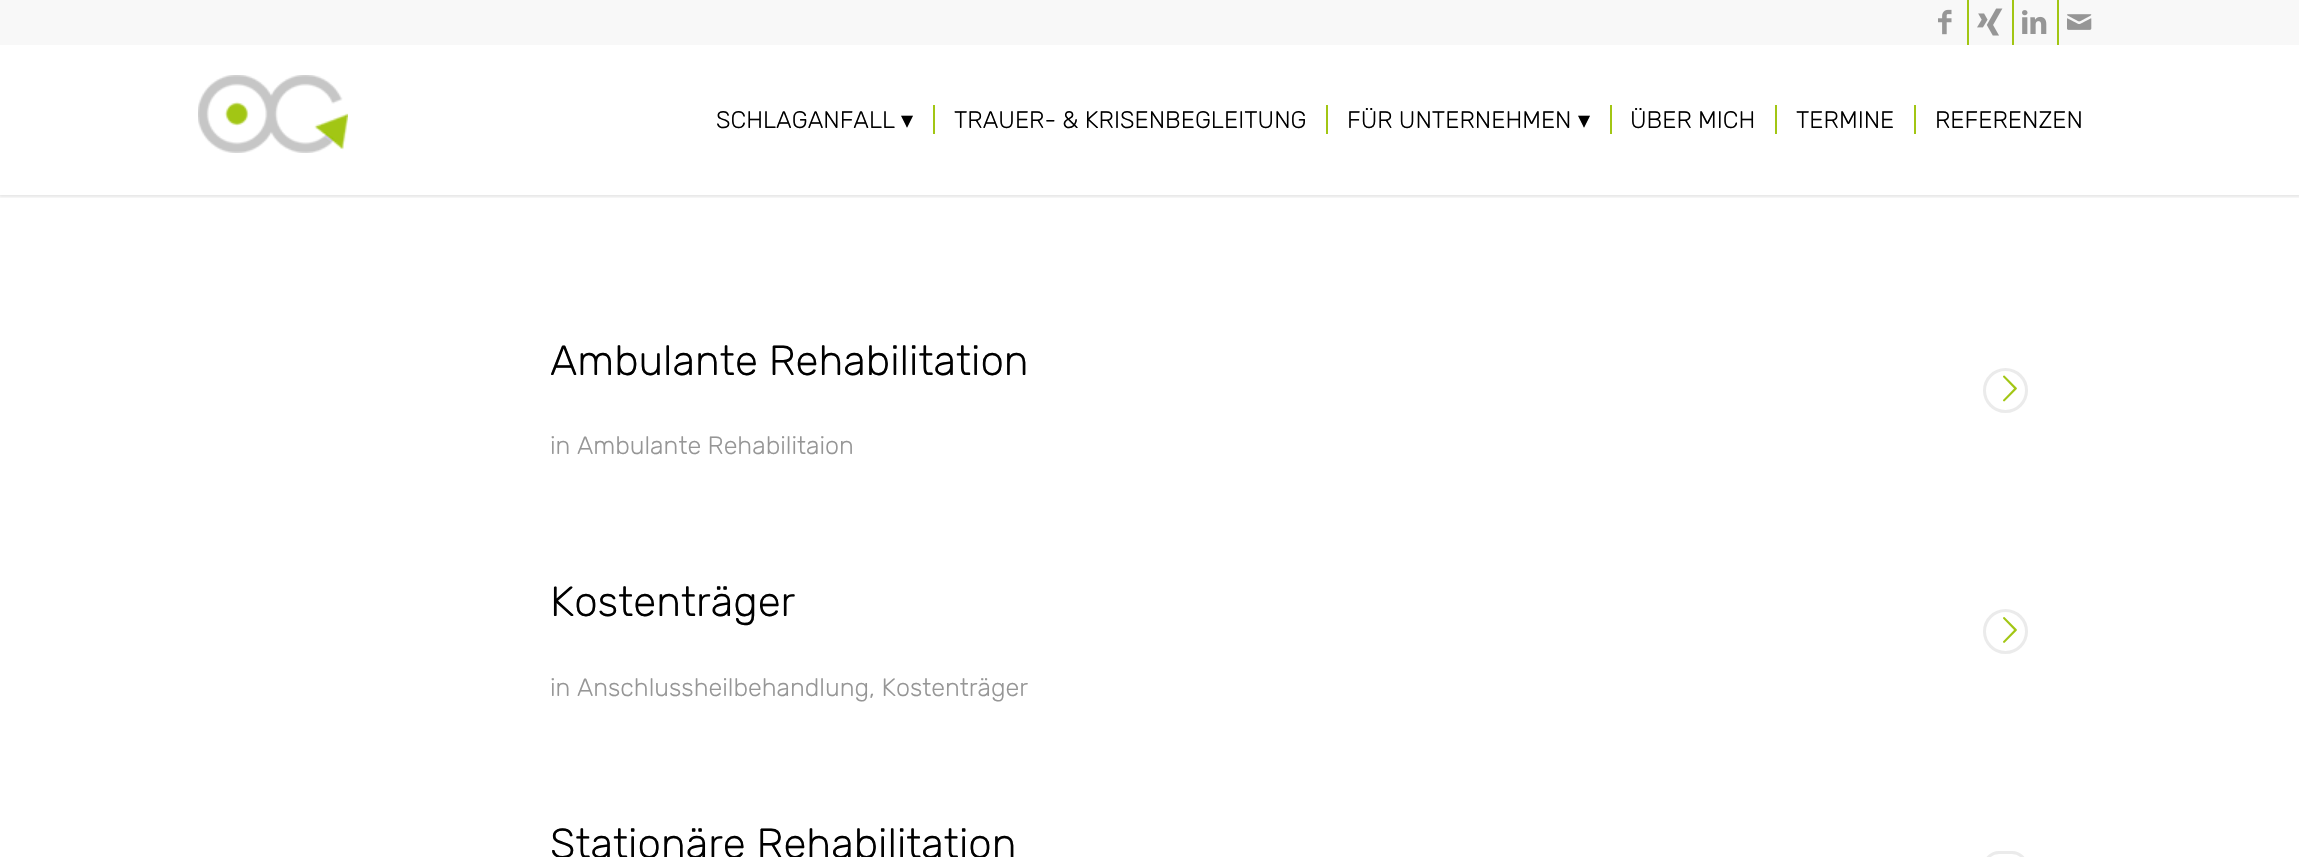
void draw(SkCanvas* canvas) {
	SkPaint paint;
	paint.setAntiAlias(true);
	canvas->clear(0xffffffff);
	canvas->save();
	canvas->clipRect(SkRect::MakeXYWH(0, 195, 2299, 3));
	paint.setColor(0x1a000000);
	paint.setMaskFilter(SkMaskFilter::MakeBlur(kNormal_SkBlurStyle, 1.5));
	canvas->drawRect(SkRect::MakeXYWH(-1, -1, 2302, 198), paint);
	paint.setMaskFilter(nullptr);
	canvas->restore();
	paint.setColor(0xfff8f8f8);
	canvas->drawRect(SkRect::MakeXYWH(0, 0, 2299, 45), paint);
	paint.setColor(0xffa2c614);
	canvas->drawRect(SkRect::MakeXYWH(1967, 0, 2, 45), paint);
	canvas->drawImageRect(SkImages::DeferredFromEncodedData(SkData::MakeFromFileName("img1.png")), SkRect::MakeXYWH(1938, 9, 14, 26), SkSamplingOptions());
	canvas->drawRect(SkRect::MakeXYWH(2012, 0, 2, 45), paint);
	canvas->drawImageRect(SkImages::DeferredFromEncodedData(SkData::MakeFromFileName("img2.png")), SkRect::MakeXYWH(1977, 8, 26, 28), SkSamplingOptions());
	canvas->drawRect(SkRect::MakeXYWH(2057, 0, 2, 45), paint);
	canvas->drawImageRect(SkImages::DeferredFromEncodedData(SkData::MakeFromFileName("img3.png")), SkRect::MakeXYWH(2022, 10, 25, 24), SkSamplingOptions());
	canvas->drawImageRect(SkImages::DeferredFromEncodedData(SkData::MakeFromFileName("img4.png")), SkRect::MakeXYWH(2067, 14, 25, 16), SkSamplingOptions());
	canvas->drawImageRect(SkImages::DeferredFromEncodedData(SkData::MakeFromFileName("img5.png")), SkRect::MakeXYWH(198, 75, 150, 78), SkSamplingOptions());
	SkFont f1(fontMgr->matchFamilyStyle("Rubik", SkFontStyle(300, SkFontStyle::kNormal_Width, SkFontStyle::kUpright_Slant)), 24);
	f1.setSubpixel(true);
	paint.setColor(0xff000000);
	canvas->drawString("SCHLAGANFALL", 716, 128, f1, paint);
	SkFont f2(fontMgr->matchFamilyStyle("DejaVu Sans", SkFontStyle::Normal()), 24);
	f2.setSubpixel(true);
	canvas->drawString("▾", 901, 128, f2, paint);
	canvas->drawString("TRAUER- & KRISENBEGLEITUNG", 954, 128, f1, paint);
	paint.setColor(0xffa2c614);
	canvas->drawRect(SkRect::MakeXYWH(933, 105, 2, 29), paint);
	paint.setColor(0xff000000);
	canvas->drawString("FÜR UNTERNEHMEN", 1347, 128, f1, paint);
	paint.setColor(0xffa2c614);
	canvas->drawRect(SkRect::MakeXYWH(1326, 105, 2, 29), paint);
	paint.setColor(0xff000000);
	canvas->drawString("▾", 1578, 128, f2, paint);
	canvas->drawString("ÜBER MICH", 1630, 128, f1, paint);
	paint.setColor(0xffa2c614);
	canvas->drawRect(SkRect::MakeXYWH(1610, 105, 2, 29), paint);
	paint.setColor(0xff000000);
	canvas->drawString("TERMINE", 1796, 128, f1, paint);
	paint.setColor(0xffa2c614);
	canvas->drawRect(SkRect::MakeXYWH(1775, 105, 2, 29), paint);
	paint.setColor(0xff000000);
	canvas->drawString("REFERENZEN", 1935, 128, f1, paint);
	paint.setColor(0xffa2c614);
	canvas->drawRect(SkRect::MakeXYWH(1914, 105, 2, 29), paint);
	SkFont f3(fontMgr->matchFamilyStyle("Rubik", SkFontStyle(300, SkFontStyle::kNormal_Width, SkFontStyle::kUpright_Slant)), 42);
	f3.setSubpixel(true);
	paint.setColor(0xff000000);
	canvas->drawString("Ambulante Rehabilitation", 550, 375, f3, paint);
	paint.setStroke(true);
	paint.setStrokeWidth(3);
	paint.setColor(0xffebebeb);
	canvas->drawCircle(2005.5, 390.5, 21, paint);
	canvas->drawImageRect(SkImages::DeferredFromEncodedData(SkData::MakeFromFileName("img6.png")), SkRect::MakeXYWH(2003, 375, 14, 27), SkSamplingOptions());
	SkFont f4(fontMgr->matchFamilyStyle("Rubik", SkFontStyle(300, SkFontStyle::kNormal_Width, SkFontStyle::kUpright_Slant)), 25.1);
	f4.setSubpixel(true);
	paint.setStroke(false);
	paint.setColor(0xff969696);
	canvas->drawString("in Ambulante Rehabilitaion", 550, 454, f4, paint);
	paint.setColor(0xff000000);
	canvas->drawString("Kostenträger", 550, 616, f3, paint);
	paint.setStroke(true);
	paint.setColor(0xffebebeb);
	canvas->drawCircle(2005.5, 631.5, 21, paint);
	canvas->drawImageRect(SkImages::DeferredFromEncodedData(SkData::MakeFromFileName("img7.png")), SkRect::MakeXYWH(2003, 617, 14, 26), SkSamplingOptions());
	paint.setStroke(false);
	paint.setColor(0xff969696);
	canvas->drawString("in Anschlussheilbehandlung, Kostenträger", 550, 696, f4, paint);
	paint.setColor(0xff000000);
	canvas->drawString("Stationäre Rehabilitation", 550, 858, f3, paint);
	paint.setStroke(true);
	paint.setColor(0xffebebeb);
	canvas->drawRoundRect(SkRect::MakeXYWH(1984.5, 852.5, 42, 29), 21, 21, paint);
}
